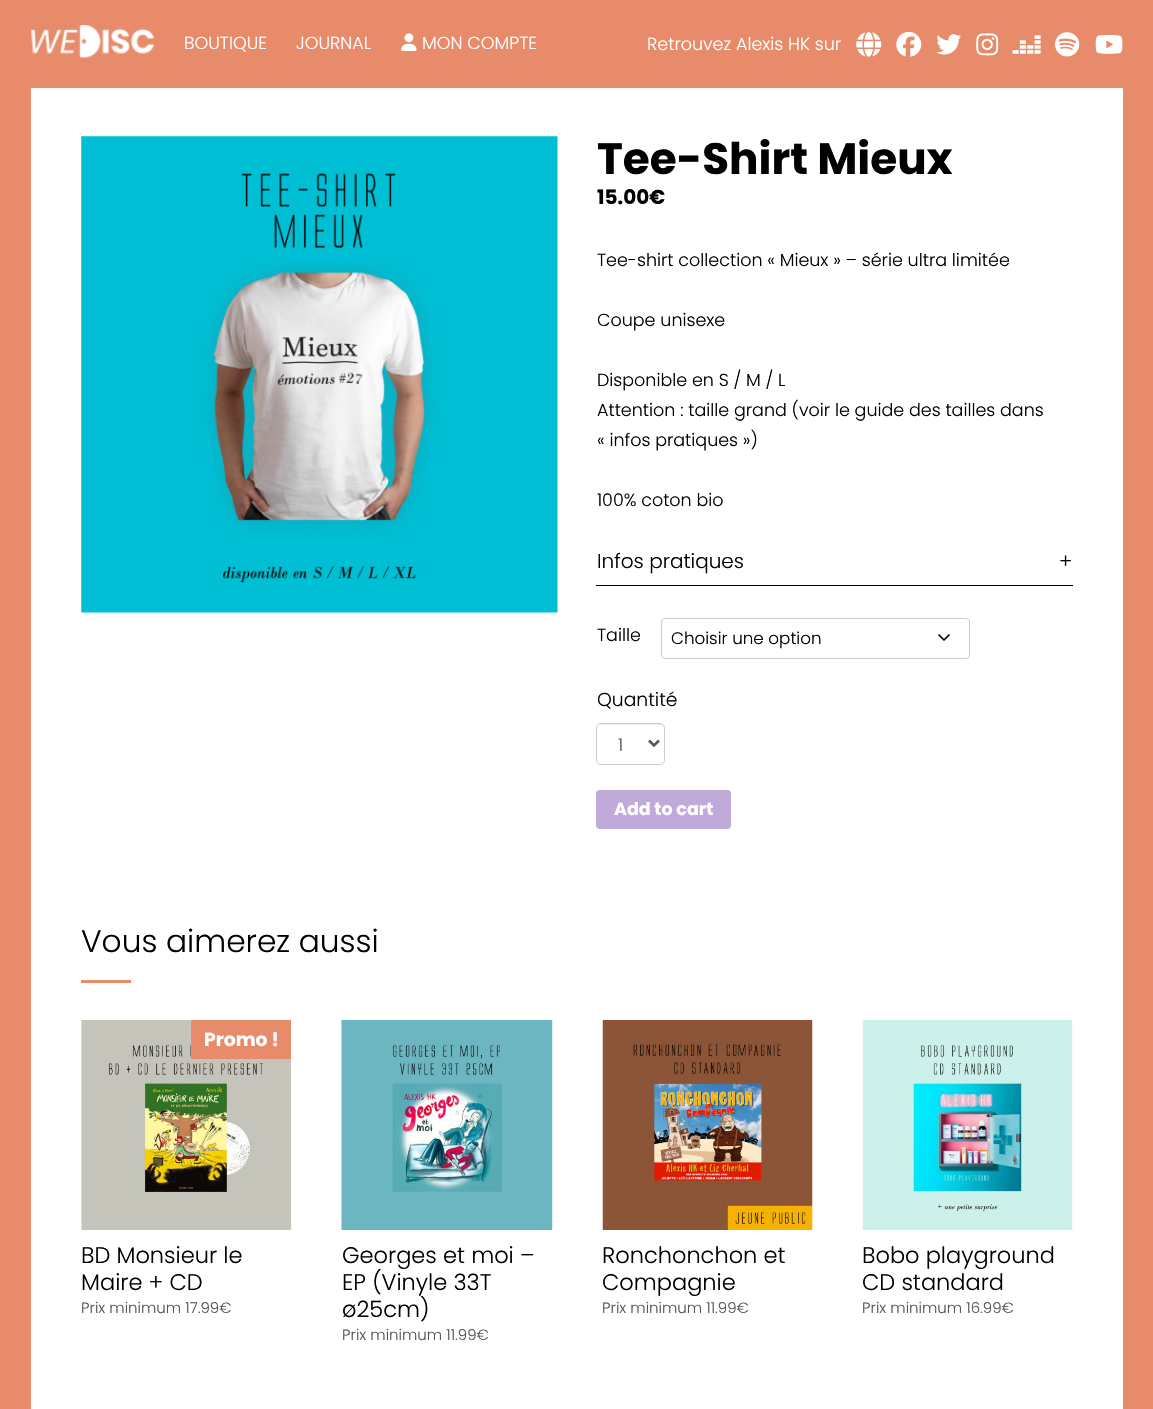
void draw(SkCanvas* canvas) {
	SkPaint paint;
	paint.setAntiAlias(true);
	auto svgPath = [&](const char* data, bool evenOdd = false) {
		SkPath result = *SkParsePath::FromSVGString(data);
		if (evenOdd) result.setFillType(SkPathFillType::kEvenOdd);
		return result;
	};
	canvas->clear(0xffffffff);
	paint.setColor(0xffe78b6b);
	canvas->drawRect(SkRect::MakeXYWH(1123, 0, 30, 1409), paint);
	canvas->drawRect(SkRect::MakeXYWH(0, 0, 31, 1409), paint);
	canvas->drawRect(SkRect::MakeXYWH(31, 0, 1092, 88), paint);
	canvas->drawImageRect(SkImages::DeferredFromEncodedData(SkData::MakeFromFileName("img1.png")), SkRect::MakeXYWH(31, 25, 123, 33), SkSamplingOptions());
	SkFont f1(fontMgr->matchFamilyStyle("Poppins", SkFontStyle(300, SkFontStyle::kNormal_Width, SkFontStyle::kUpright_Slant)), 17.5);
	f1.setSubpixel(true);
	paint.setColor(0xffffffff);
	canvas->drawString("BOUTIQUE", 184, 49, f1, paint);
	canvas->drawString("JOURNAL", 296, 49, f1, paint);
	canvas->drawImageRect(SkImages::DeferredFromEncodedData(SkData::MakeFromFileName("img2.png")), SkRect::MakeXYWH(401, 33, 16, 18), SkSamplingOptions());
	canvas->drawString("MON COMPTE", 422, 49, f1, paint);
	canvas->drawString("Retrouvez Alexis HK sur", 647, 50, f1, paint);
	canvas->drawImageRect(SkImages::DeferredFromEncodedData(SkData::MakeFromFileName("img3.png")), SkRect::MakeXYWH(856, 31, 26, 26), SkSamplingOptions());
	canvas->drawImageRect(SkImages::DeferredFromEncodedData(SkData::MakeFromFileName("img4.png")), SkRect::MakeXYWH(896, 31, 26, 26), SkSamplingOptions());
	canvas->drawImageRect(SkImages::DeferredFromEncodedData(SkData::MakeFromFileName("img5.png")), SkRect::MakeXYWH(936, 34, 26, 21), SkSamplingOptions());
	canvas->drawImageRect(SkImages::DeferredFromEncodedData(SkData::MakeFromFileName("img6.png")), SkRect::MakeXYWH(976, 33, 23, 23), SkSamplingOptions());
	canvas->drawImageRect(SkImages::DeferredFromEncodedData(SkData::MakeFromFileName("img7.png")), SkRect::MakeXYWH(1012, 35, 29, 19), SkSamplingOptions());
	canvas->drawImageRect(SkImages::DeferredFromEncodedData(SkData::MakeFromFileName("img8.png")), SkRect::MakeXYWH(1055, 32, 25, 25), SkSamplingOptions());
	canvas->drawImageRect(SkImages::DeferredFromEncodedData(SkData::MakeFromFileName("img9.png")), SkRect::MakeXYWH(1095, 35, 28, 19), SkSamplingOptions());
	canvas->drawImageRect(SkImages::DeferredFromEncodedData(SkData::MakeFromFileName("img10.png")), SkRect::MakeXYWH(81, 136, 477, 477), SkSamplingOptions());
	SkFont f2(fontMgr->matchFamilyStyle("Poppins", SkFontStyle::Bold()), 43.75);
	f2.setSubpixel(true);
	paint.setColor(0xff000000);
	canvas->drawString("Tee-Shirt Mieux", 597, 174, f2, paint);
	SkFont f3(fontMgr->matchFamilyStyle("Poppins", SkFontStyle::Bold()), 20);
	f3.setSubpixel(true);
	canvas->drawString("15.00€", 597, 204, f3, paint);
	canvas->drawString("Tee-shirt collection « Mieux » – série ultra limitée", 597, 266, f1, paint);
	canvas->drawString("Coupe unisexe", 597, 326, f1, paint);
	canvas->drawString("Disponible en S / M / L", 597, 386, f1, paint);
	canvas->drawString("Attention : taille grand (voir le guide des tailles dans", 597, 416, f1, paint);
	canvas->drawString("« infos pratiques »)", 597, 446, f1, paint);
	canvas->drawString("100% coton bio", 597, 506, f1, paint);
	canvas->drawRect(SkRect::MakeXYWH(596, 585, 477, 1), paint);
	SkFont f4(fontMgr->matchFamilyStyle("Poppins", SkFontStyle(300, SkFontStyle::kNormal_Width, SkFontStyle::kUpright_Slant)), 20);
	f4.setSubpixel(true);
	canvas->drawString("Infos pratiques", 597, 568, f4, paint);
	canvas->drawString("+", 1059, 568, f4, paint);
	canvas->drawString("Taille", 597, 641, f1, paint);
	paint.setStroke(true);
	paint.setStrokeWidth(1.7);
	paint.setStrokeCap(SkPaint::kRound_Cap);
	paint.setStrokeJoin(SkPaint::kRound_Join);
	canvas->drawPath(svgPath("M939 635L944 640L949 635"), paint);
	paint.setStrokeWidth(1);
	paint.setStrokeCap(SkPaint::kButt_Cap);
	paint.setStrokeJoin(SkPaint::kMiter_Join);
	paint.setColor(0xffcccccc);
	canvas->drawRoundRect(SkRect::MakeXYWH(661.5, 618.5, 308, 40), 3.5, 3.5, paint);
	SkFont f5(fontMgr->matchFamilyStyle("Poppins", SkFontStyle(300, SkFontStyle::kNormal_Width, SkFontStyle::kUpright_Slant)), 16.75);
	f5.setSubpixel(true);
	paint.setStroke(false);
	paint.setColor(0xff000000);
	canvas->drawString("Choisir une option", 671, 644, f5, paint);
	SkFont f6(fontMgr->matchFamilyStyle("Poppins", SkFontStyle(300, SkFontStyle::kNormal_Width, SkFontStyle::kUpright_Slant)), 18.75);
	f6.setSubpixel(true);
	canvas->drawString("Quantité", 597, 706, f6, paint);
	paint.setColor(0xffebebeb);
	canvas->drawPath(svgPath("M601 725H660C662 725 664 727 664 729C664 722 655 724 650 724H612C607 724 598 722 598 729C598 727 599 725 601 725Z"), paint);
	paint.setStroke(true);
	paint.setColor(0xffcccccc);
	canvas->drawRoundRect(SkRect::MakeXYWH(596.5, 723.5, 68, 41), 4.5, 4.5, paint);
	paint.setStrokeWidth(2.5);
	paint.setColor(0xff555555);
	canvas->drawPath(svgPath("M649 740.5L654 745.5L659 740.5"), paint);
	paint.setStroke(false);
	canvas->drawString("1", 618, 751, f1, paint);
	paint.setColor(0xffbfaad9);
	canvas->drawRoundRect(SkRect::MakeXYWH(596, 790, 135, 39), 4, 4, paint);
	SkFont f7(fontMgr->matchFamilyStyle("Poppins", SkFontStyle::Bold()), 17.5);
	f7.setSubpixel(true);
	paint.setColor(0xffffffff);
	canvas->drawString("Add to cart", 614, 815, f7, paint);
	SkFont f8(fontMgr->matchFamilyStyle("Poppins", SkFontStyle(300, SkFontStyle::kNormal_Width, SkFontStyle::kUpright_Slant)), 31.25);
	f8.setSubpixel(true);
	paint.setColor(0xff000000);
	canvas->drawString("Vous aimerez aussi", 81, 952, f8, paint);
	paint.setColor(0xffe78b6b);
	canvas->drawRect(SkRect::MakeXYWH(81, 980, 50, 3), paint);
	canvas->drawImageRect(SkImages::DeferredFromEncodedData(SkData::MakeFromFileName("img11.png")), SkRect::MakeXYWH(81, 1020, 211, 210), SkSamplingOptions());
	canvas->drawRect(SkRect::MakeXYWH(191, 1020, 100, 39), paint);
	SkFont f9(fontMgr->matchFamilyStyle("Poppins", SkFontStyle::Bold()), 18.75);
	f9.setSubpixel(true);
	paint.setColor(0xffffffff);
	canvas->drawString("Promo !", 204, 1046, f9, paint);
	SkFont f10(fontMgr->matchFamilyStyle("Poppins", SkFontStyle(300, SkFontStyle::kNormal_Width, SkFontStyle::kUpright_Slant)), 22.5);
	f10.setSubpixel(true);
	paint.setColor(0xff000000);
	canvas->drawString("BD Monsieur le", 81, 1263, f10, paint);
	canvas->drawString("Maire + CD", 81, 1290, f10, paint);
	SkFont f11(fontMgr->matchFamilyStyle("Poppins", SkFontStyle(300, SkFontStyle::kNormal_Width, SkFontStyle::kUpright_Slant)), 15);
	f11.setSubpixel(true);
	paint.setColor(0xff555555);
	canvas->drawString("Prix minimum 17.99€", 81, 1313, f11, paint);
	canvas->drawImageRect(SkImages::DeferredFromEncodedData(SkData::MakeFromFileName("img12.png")), SkRect::MakeXYWH(341, 1020, 212, 210), SkSamplingOptions());
	paint.setColor(0xff000000);
	canvas->drawString("Georges et moi –", 342, 1263, f10, paint);
	canvas->drawString("EP (Vinyle 33T", 342, 1290, f10, paint);
	canvas->drawString("ø25cm)", 342, 1317, f10, paint);
	paint.setColor(0xff555555);
	canvas->drawString("Prix minimum 11.99€", 342, 1340, f11, paint);
	canvas->drawImageRect(SkImages::DeferredFromEncodedData(SkData::MakeFromFileName("img13.png")), SkRect::MakeXYWH(602, 1020, 211, 210), SkSamplingOptions());
	paint.setColor(0xff000000);
	canvas->drawString("Ronchonchon et", 602, 1263, f10, paint);
	canvas->drawString("Compagnie", 602, 1290, f10, paint);
	paint.setColor(0xff555555);
	canvas->drawString("Prix minimum 11.99€", 602, 1313, f11, paint);
	canvas->drawImageRect(SkImages::DeferredFromEncodedData(SkData::MakeFromFileName("img14.png")), SkRect::MakeXYWH(862, 1020, 211, 210), SkSamplingOptions());
	paint.setColor(0xff000000);
	canvas->drawString("Bobo playground", 862, 1263, f10, paint);
	canvas->drawString("CD standard", 862, 1290, f10, paint);
	paint.setColor(0xff555555);
	canvas->drawString("Prix minimum 16.99€", 862, 1313, f11, paint);
}
